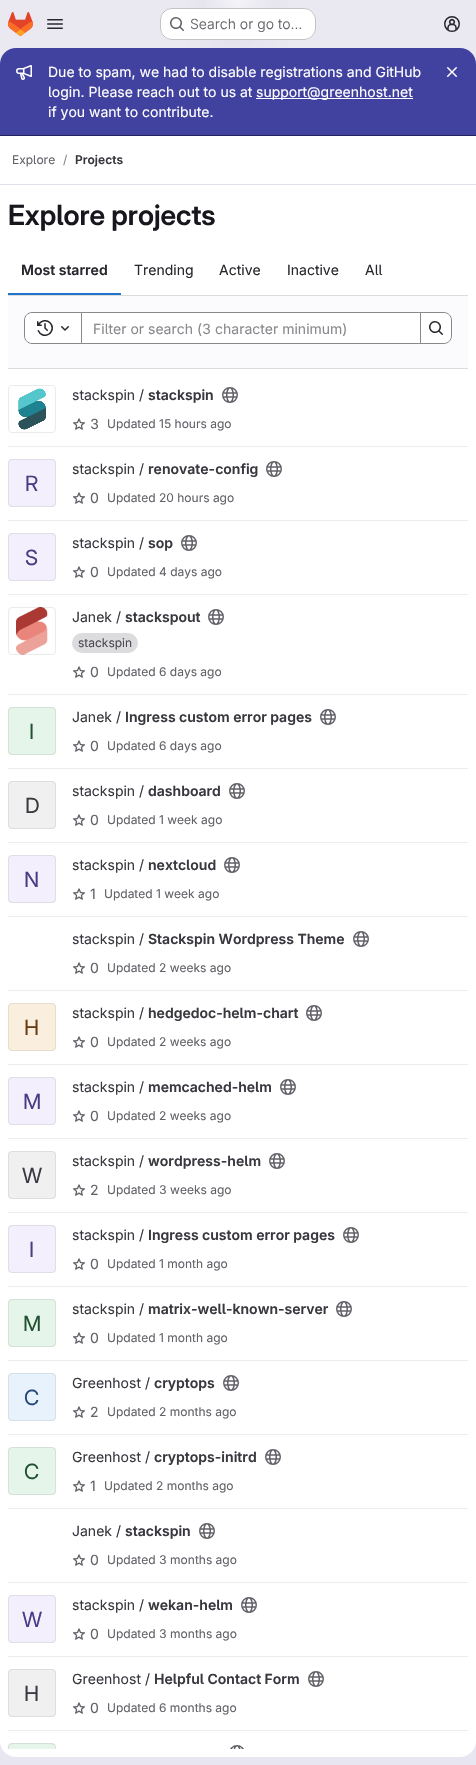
void draw(SkCanvas* canvas) {
	SkPaint paint;
	paint.setAntiAlias(true);
	auto svgPath = [&](const char* data, bool evenOdd = false) {
		SkPath result = *SkParsePath::FromSVGString(data);
		if (evenOdd) result.setFillType(SkPathFillType::kEvenOdd);
		return result;
	};
	canvas->clear(0xffffffff);
	{
		const SkColor colors[] = {0xffe8e6f0, 0xffeae9f2};
		const float stops[] = {0, 0.7};
		const SkPoint ends[] = {{396, 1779}, {80, -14}};
		paint.setShader(SkGradientShader::MakeLinear(ends, colors, stops, 2, SkTileMode::kClamp));
		paint.setAlpha(255);
	}
	canvas->drawRect(SkRect::MakeXYWH(0, 0, 476, 1765), paint);
	{
		const SkColor colors[] = {0xffe4e2ed, 0x00e4e2ed};
		const float stops[] = {0, 0.29};
		SkMatrix m = SkMatrix::Translate(238, 0).preScale(238, 1765);
		paint.setShader(SkGradientShader::MakeRadial({0, 0}, 1, colors, stops, 2, SkTileMode::kClamp, 0, &m));
		paint.setAlpha(255);
	}
	canvas->drawRect(SkRect::MakeXYWH(188, 0, 100, 48), paint);
	{
		const SkColor colors[] = {0xffe4e2ec, 0x00e4e2ec};
		const float stops[] = {0, 0.21};
		SkMatrix m = SkMatrix::Translate(238, 0).preScale(238, 1765);
		paint.setShader(SkGradientShader::MakeRadial({0, 0}, 1, colors, stops, 2, SkTileMode::kClamp, 0, &m));
		paint.setAlpha(255);
	}
	canvas->drawRect(SkRect::MakeXYWH(222, 12, 32, 31), paint);
	{
		const SkColor colors[] = {0x99ffffff, 0x00ffffff};
		const float stops[] = {0, 0.02};
		paint.setShader(SkGradientShader::MakeRadial({238, 0}, 1781, colors, stops, 2, SkTileMode::kClamp));
		paint.setAlpha(255);
	}
	canvas->drawRect(SkRect::MakeXYWH(204, 0, 68, 8), paint);
	canvas->drawImageRect(SkImages::DeferredFromEncodedData(SkData::MakeFromFileName("img1.png")), SkRect::MakeXYWH(8, 12, 25, 24), SkSamplingOptions());
	canvas->drawImageRect(SkImages::DeferredFromEncodedData(SkData::MakeFromFileName("img2.png")), SkRect::MakeXYWH(47, 19, 16, 10), SkSamplingOptions());
	paint.setShader(nullptr);
	paint.setColor(0xffffffff);
	canvas->drawRoundRect(SkRect::MakeXYWH(160, 8, 156, 32), 12, 12, paint);
	paint.setStroke(true);
	paint.setStrokeWidth(1);
	paint.setColor(0x3d050506);
	canvas->drawRoundRect(SkRect::MakeXYWH(160.5, 8.5, 155, 31), 11.5, 11.5, paint);
	canvas->drawImageRect(SkImages::DeferredFromEncodedData(SkData::MakeFromFileName("img3.png")), SkRect::MakeXYWH(170, 17, 14, 14), SkSamplingOptions());
	SkFont f1(fontMgr->matchFamilyStyle("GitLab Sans", SkFontStyle(300, SkFontStyle::kNormal_Width, SkFontStyle::kUpright_Slant)), 14);
	f1.setSubpixel(true);
	paint.setStroke(false);
	paint.setColor(0xff626168);
	canvas->drawString("Search or go to…", 190, 29, f1, paint);
	canvas->drawImageRect(SkImages::DeferredFromEncodedData(SkData::MakeFromFileName("img4.png")), SkRect::MakeXYWH(444, 16, 16, 16), SkSamplingOptions());
	paint.setColor(0xffffffff);
	canvas->drawRoundRect(SkRect::MakeXYWH(0, 48, 476, 1709), 16, 16, paint);
	paint.setColor(0xff41419f);
	canvas->drawPath(svgPath("M16 48H460C469 48 476 55 476 64V136H0V64C0 55 7 48 16 48Z"), paint);
	paint.setColor(0xff222261);
	canvas->drawRect(SkRect::MakeXYWH(0, 135, 476, 1), paint);
	canvas->drawImageRect(SkImages::DeferredFromEncodedData(SkData::MakeFromFileName("img5.png")), SkRect::MakeXYWH(16, 65, 16, 15), SkSamplingOptions());
	SkFont f2(fontMgr->matchFamilyStyle("GitLab Sans", SkFontStyle::Normal()), 14);
	f2.setSubpixel(true);
	paint.setColor(0xffffffff);
	canvas->drawString("Due to spam, we had to disable registrations and GitHub", 48, 77, f2, paint);
	canvas->drawString("login. Please reach out to us at", 48, 97, f2, paint);
	canvas->drawRect(SkRect::MakeXYWH(256, 98, 157, 1), paint);
	canvas->drawString("support@greenhost.net", 256, 97, f2, paint);
	canvas->drawString("if you want to contribute.", 48, 117, f2, paint);
	canvas->drawImageRect(SkImages::DeferredFromEncodedData(SkData::MakeFromFileName("img6.png")), SkRect::MakeXYWH(447, 67, 10, 10), SkSamplingOptions());
	paint.setColor(0xffe1dfec);
	canvas->drawRect(SkRect::MakeXYWH(0, 184, 476, 1), paint);
	SkFont f3(fontMgr->matchFamilyStyle("GitLab Sans", SkFontStyle::Normal()), 12);
	f3.setSubpixel(true);
	paint.setColor(0xff626168);
	canvas->drawString("Explore", 12, 164, f3, paint);
	paint.setColor(0xff89888d);
	canvas->drawString("/", 63, 164, f3, paint);
	SkFont f4(fontMgr->matchFamilyStyle("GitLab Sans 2", SkFontStyle(600, SkFontStyle::kNormal_Width, SkFontStyle::kUpright_Slant)), 12);
	f4.setSubpixel(true);
	paint.setColor(0xff3a383f);
	canvas->drawString("Projects", 75, 164, f4, paint);
	SkFont f5(fontMgr->matchFamilyStyle("GitLab Sans", SkFontStyle(600, SkFontStyle::kNormal_Width, SkFontStyle::kUpright_Slant)), 28);
	f5.setSubpixel(true);
	paint.setColor(0xff18171d);
	canvas->drawString("Explore projects", 8, 225, f5, paint);
	SkFont f6(fontMgr->matchFamilyStyle("GitLab Sans 2", SkFontStyle(600, SkFontStyle::kNormal_Width, SkFontStyle::kUpright_Slant)), 14);
	f6.setSubpixel(true);
	paint.setColor(0xff28272d);
	canvas->drawString("Most starred", 21, 275, f6, paint);
	paint.setColor(0xff1f75cb);
	canvas->drawRect(SkRect::MakeXYWH(8, 293, 113, 2), paint);
	paint.setColor(0xff28272d);
	canvas->drawString("Trending", 134, 275, f2, paint);
	canvas->drawString("Active", 219, 275, f2, paint);
	canvas->drawString("Inactive", 287, 275, f2, paint);
	canvas->drawString("All", 365, 275, f2, paint);
	paint.setColor(0xfffbfafd);
	canvas->drawRect(SkRect::MakeXYWH(8, 296, 460, 72), paint);
	paint.setColor(0xffdcdcde);
	canvas->drawRect(SkRect::MakeXYWH(8, 295, 460, 1), paint);
	canvas->drawRect(SkRect::MakeXYWH(8, 368, 460, 1), paint);
	paint.setColor(0xffffffff);
	canvas->drawRect(SkRect::MakeXYWH(81.5, 312.5, 339, 31), paint);
	paint.setStroke(true);
	paint.setColor(0xff89888d);
	canvas->drawRect(SkRect::MakeXYWH(81.5, 312.5, 339, 31), paint);
	paint.setStroke(false);
	paint.setColor(0xffffffff);
	canvas->drawPath(svgPath("M32 312.5H81.5V343.5H32C28 343.5 24.5 340 24.5 336V320C24.5 316 28 312.5 32 312.5Z"), paint);
	paint.setStroke(true);
	paint.setColor(0xff89888d);
	canvas->drawPath(svgPath("M32 312.5H81.5V343.5H32C28 343.5 24.5 340 24.5 336V320C24.5 316 28 312.5 32 312.5Z"), paint);
	canvas->drawImageRect(SkImages::DeferredFromEncodedData(SkData::MakeFromFileName("img7.png")), SkRect::MakeXYWH(37, 320, 16, 16), SkSamplingOptions());
	canvas->drawImageRect(SkImages::DeferredFromEncodedData(SkData::MakeFromFileName("img8.png")), SkRect::MakeXYWH(61, 326, 8, 5), SkSamplingOptions());
	paint.setStroke(false);
	canvas->drawString("Filter or search (3 character minimum)", 93, 334, f2, paint);
	paint.setColor(0xffffffff);
	canvas->drawPath(svgPath("M420.5 312.5H444C448 312.5 451.5 316 451.5 320V336C451.5 340 448 343.5 444 343.5H420.5Z"), paint);
	paint.setStroke(true);
	paint.setColor(0xff89888d);
	canvas->drawPath(svgPath("M420.5 312.5H444C448 312.5 451.5 316 451.5 320V336C451.5 340 448 343.5 444 343.5H420.5Z"), paint);
	canvas->drawImageRect(SkImages::DeferredFromEncodedData(SkData::MakeFromFileName("img9.png")), SkRect::MakeXYWH(429, 321, 14, 14), SkSamplingOptions());
	paint.setStroke(false);
	paint.setColor(0xffececef);
	canvas->drawRect(SkRect::MakeXYWH(8, 446, 460, 1), paint);
	canvas->drawImageRect(SkImages::DeferredFromEncodedData(SkData::MakeFromFileName("img10.png")), SkRect::MakeXYWH(18, 388, 28, 42), SkSamplingOptions());
	paint.setStroke(true);
	paint.setColor(0xffebebeb);
	canvas->drawRoundRect(SkRect::MakeXYWH(8.5, 385.5, 47, 47), 3.5, 3.5, paint);
	paint.setStroke(false);
	paint.setColor(0xff3a383f);
	canvas->drawString("stackspin /", 72, 400, f2, paint);
	canvas->drawString("stackspin", 148, 400, f6, paint);
	canvas->drawImageRect(SkImages::DeferredFromEncodedData(SkData::MakeFromFileName("img11.png")), SkRect::MakeXYWH(222, 387, 16, 16), SkSamplingOptions());
	canvas->drawImageRect(SkImages::DeferredFromEncodedData(SkData::MakeFromFileName("img12.png")), SkRect::MakeXYWH(72, 418, 14, 12), SkSamplingOptions());
	paint.setColor(0xff626168);
	canvas->drawString("3", 90, 429, f2, paint);
	canvas->drawString("Updated 15 hours ago", 107, 428, f3, paint);
	paint.setColor(0xffececef);
	canvas->drawRect(SkRect::MakeXYWH(8, 520, 460, 1), paint);
	paint.setColor(0xfff3effc);
	canvas->drawRoundRect(SkRect::MakeXYWH(8, 459, 48, 48), 4, 4, paint);
	paint.setStroke(true);
	paint.setColor(0x14050506);
	canvas->drawRoundRect(SkRect::MakeXYWH(8.5, 459.5, 47, 47), 3.5, 3.5, paint);
	SkFont f7(fontMgr->matchFamilyStyle("GitLab Sans 2", SkFontStyle::Normal()), 21);
	f7.setSubpixel(true);
	paint.setStroke(false);
	paint.setColor(0xff493c83);
	canvas->drawString("R", 25, 491, f7, paint);
	paint.setColor(0xff3a383f);
	canvas->drawString("stackspin /", 72, 474, f2, paint);
	canvas->drawString("renovate-config", 148, 474, f6, paint);
	canvas->drawImageRect(SkImages::DeferredFromEncodedData(SkData::MakeFromFileName("img11.png")), SkRect::MakeXYWH(266, 461, 16, 16), SkSamplingOptions());
	canvas->drawImageRect(SkImages::DeferredFromEncodedData(SkData::MakeFromFileName("img12.png")), SkRect::MakeXYWH(72, 492, 14, 12), SkSamplingOptions());
	paint.setColor(0xff626168);
	canvas->drawString("0", 90, 503, f2, paint);
	canvas->drawString("Updated 20 hours ago", 107, 502, f3, paint);
	paint.setColor(0xffececef);
	canvas->drawRect(SkRect::MakeXYWH(8, 594, 460, 1), paint);
	paint.setColor(0xfff3effc);
	canvas->drawRoundRect(SkRect::MakeXYWH(8, 533, 48, 48), 4, 4, paint);
	paint.setStroke(true);
	paint.setColor(0x14050506);
	canvas->drawRoundRect(SkRect::MakeXYWH(8.5, 533.5, 47, 47), 3.5, 3.5, paint);
	SkFont f8(fontMgr->matchFamilyStyle("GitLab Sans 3", SkFontStyle::Normal()), 21);
	f8.setSubpixel(true);
	paint.setStroke(false);
	paint.setColor(0xff493c83);
	canvas->drawString("S", 25, 565, f8, paint);
	paint.setColor(0xff3a383f);
	canvas->drawString("stackspin /", 72, 548, f2, paint);
	canvas->drawString("sop", 148, 548, f6, paint);
	canvas->drawImageRect(SkImages::DeferredFromEncodedData(SkData::MakeFromFileName("img11.png")), SkRect::MakeXYWH(181, 535, 16, 16), SkSamplingOptions());
	canvas->drawImageRect(SkImages::DeferredFromEncodedData(SkData::MakeFromFileName("img12.png")), SkRect::MakeXYWH(72, 566, 14, 12), SkSamplingOptions());
	paint.setColor(0xff626168);
	canvas->drawString("0", 90, 577, f2, paint);
	canvas->drawString("Updated 4 days ago", 107, 576, f3, paint);
	paint.setColor(0xffececef);
	canvas->drawRect(SkRect::MakeXYWH(8, 694, 460, 1), paint);
	canvas->drawImageRect(SkImages::DeferredFromEncodedData(SkData::MakeFromFileName("img13.png")), SkRect::MakeXYWH(16, 607, 32, 48), SkSamplingOptions());
	paint.setStroke(true);
	paint.setColor(0x14050506);
	canvas->drawRoundRect(SkRect::MakeXYWH(8.5, 607.5, 47, 47), 3.5, 3.5, paint);
	paint.setStroke(false);
	paint.setColor(0xff3a383f);
	canvas->drawString("Janek /", 72, 622, f2, paint);
	canvas->drawString("stackspout", 125, 622, f6, paint);
	canvas->drawImageRect(SkImages::DeferredFromEncodedData(SkData::MakeFromFileName("img11.png")), SkRect::MakeXYWH(208, 609, 16, 16), SkSamplingOptions());
	paint.setColor(0xffdcdcde);
	canvas->drawRoundRect(SkRect::MakeXYWH(72, 633, 66, 20), 10, 10, paint);
	paint.setColor(0xff4c4b51);
	canvas->drawString("stackspin", 78, 647, f3, paint);
	canvas->drawImageRect(SkImages::DeferredFromEncodedData(SkData::MakeFromFileName("img12.png")), SkRect::MakeXYWH(72, 666, 14, 12), SkSamplingOptions());
	paint.setColor(0xff626168);
	canvas->drawString("0", 90, 677, f2, paint);
	canvas->drawString("Updated 6 days ago", 107, 676, f3, paint);
	paint.setColor(0xffececef);
	canvas->drawRect(SkRect::MakeXYWH(8, 768, 460, 1), paint);
	paint.setColor(0xffe5f5ea);
	canvas->drawRoundRect(SkRect::MakeXYWH(8, 707, 48, 48), 4, 4, paint);
	paint.setStroke(true);
	paint.setColor(0x14050506);
	canvas->drawRoundRect(SkRect::MakeXYWH(8.5, 707.5, 47, 47), 3.5, 3.5, paint);
	paint.setStroke(false);
	paint.setColor(0xff225131);
	canvas->drawString("I", 29, 739, f8, paint);
	paint.setColor(0xff3a383f);
	canvas->drawString("Janek /", 72, 722, f2, paint);
	canvas->drawString("Ingress custom error pages", 125, 722, f6, paint);
	canvas->drawImageRect(SkImages::DeferredFromEncodedData(SkData::MakeFromFileName("img11.png")), SkRect::MakeXYWH(320, 709, 16, 16), SkSamplingOptions());
	canvas->drawImageRect(SkImages::DeferredFromEncodedData(SkData::MakeFromFileName("img12.png")), SkRect::MakeXYWH(72, 740, 14, 12), SkSamplingOptions());
	paint.setColor(0xff626168);
	canvas->drawString("0", 90, 751, f2, paint);
	canvas->drawString("Updated 6 days ago", 107, 750, f3, paint);
	paint.setColor(0xffececef);
	canvas->drawRect(SkRect::MakeXYWH(8, 842, 460, 1), paint);
	paint.setColor(0xfff0f0f1);
	canvas->drawRoundRect(SkRect::MakeXYWH(8, 781, 48, 48), 4, 4, paint);
	paint.setStroke(true);
	paint.setColor(0x14050506);
	canvas->drawRoundRect(SkRect::MakeXYWH(8.5, 781.5, 47, 47), 3.5, 3.5, paint);
	paint.setStroke(false);
	paint.setColor(0xff3a383f);
	canvas->drawString("D", 25, 813, f8, paint);
	canvas->drawString("stackspin /", 72, 796, f2, paint);
	canvas->drawString("dashboard", 148, 796, f6, paint);
	canvas->drawImageRect(SkImages::DeferredFromEncodedData(SkData::MakeFromFileName("img11.png")), SkRect::MakeXYWH(229, 783, 16, 16), SkSamplingOptions());
	canvas->drawImageRect(SkImages::DeferredFromEncodedData(SkData::MakeFromFileName("img12.png")), SkRect::MakeXYWH(72, 814, 14, 12), SkSamplingOptions());
	paint.setColor(0xff626168);
	canvas->drawString("0", 90, 825, f2, paint);
	canvas->drawString("Updated 1 week ago", 107, 824, f3, paint);
	paint.setColor(0xffececef);
	canvas->drawRect(SkRect::MakeXYWH(8, 916, 460, 1), paint);
	paint.setColor(0xfff3effc);
	canvas->drawRoundRect(SkRect::MakeXYWH(8, 855, 48, 48), 4, 4, paint);
	paint.setStroke(true);
	paint.setColor(0x14050506);
	canvas->drawRoundRect(SkRect::MakeXYWH(8.5, 855.5, 47, 47), 3.5, 3.5, paint);
	paint.setStroke(false);
	paint.setColor(0xff493c83);
	canvas->drawString("N", 24, 887, f8, paint);
	paint.setColor(0xff3a383f);
	canvas->drawString("stackspin /", 72, 870, f2, paint);
	canvas->drawString("nextcloud", 148, 870, f6, paint);
	canvas->drawImageRect(SkImages::DeferredFromEncodedData(SkData::MakeFromFileName("img11.png")), SkRect::MakeXYWH(224, 857, 16, 16), SkSamplingOptions());
	canvas->drawImageRect(SkImages::DeferredFromEncodedData(SkData::MakeFromFileName("img12.png")), SkRect::MakeXYWH(72, 888, 14, 12), SkSamplingOptions());
	paint.setColor(0xff626168);
	canvas->drawString("1", 90, 899, f2, paint);
	canvas->drawString("Updated 1 week ago", 104, 898, f3, paint);
	paint.setColor(0xffececef);
	canvas->drawRect(SkRect::MakeXYWH(8, 990, 460, 1), paint);
	paint.setColor(0xff3a383f);
	canvas->drawString("stackspin /", 72, 944, f2, paint);
	canvas->drawString("Stackspin Wordpress Theme", 148, 944, f6, paint);
	canvas->drawImageRect(SkImages::DeferredFromEncodedData(SkData::MakeFromFileName("img11.png")), SkRect::MakeXYWH(353, 931, 16, 16), SkSamplingOptions());
	canvas->drawImageRect(SkImages::DeferredFromEncodedData(SkData::MakeFromFileName("img12.png")), SkRect::MakeXYWH(72, 962, 14, 12), SkSamplingOptions());
	paint.setColor(0xff626168);
	canvas->drawString("0", 90, 973, f2, paint);
	canvas->drawString("Updated 2 weeks ago", 107, 972, f3, paint);
	paint.setColor(0xffececef);
	canvas->drawRect(SkRect::MakeXYWH(8, 1064, 460, 1), paint);
	paint.setColor(0xfffaefde);
	canvas->drawRoundRect(SkRect::MakeXYWH(8, 1003, 48, 48), 4, 4, paint);
	paint.setStroke(true);
	paint.setColor(0x14050506);
	canvas->drawRoundRect(SkRect::MakeXYWH(8.5, 1003.5, 47, 47), 3.5, 3.5, paint);
	paint.setStroke(false);
	paint.setColor(0xff693c14);
	canvas->drawString("H", 24, 1035, f8, paint);
	paint.setColor(0xff3a383f);
	canvas->drawString("stackspin /", 72, 1018, f2, paint);
	canvas->drawString("hedgedoc-helm-chart", 148, 1018, f6, paint);
	canvas->drawImageRect(SkImages::DeferredFromEncodedData(SkData::MakeFromFileName("img14.png")), SkRect::MakeXYWH(306, 1005, 16, 16), SkSamplingOptions());
	canvas->drawImageRect(SkImages::DeferredFromEncodedData(SkData::MakeFromFileName("img12.png")), SkRect::MakeXYWH(72, 1036, 14, 12), SkSamplingOptions());
	paint.setColor(0xff626168);
	canvas->drawString("0", 90, 1047, f2, paint);
	canvas->drawString("Updated 2 weeks ago", 107, 1046, f3, paint);
	paint.setColor(0xffececef);
	canvas->drawRect(SkRect::MakeXYWH(8, 1138, 460, 1), paint);
	paint.setColor(0xfff3effc);
	canvas->drawRoundRect(SkRect::MakeXYWH(8, 1077, 48, 48), 4, 4, paint);
	paint.setStroke(true);
	paint.setColor(0x14050506);
	canvas->drawRoundRect(SkRect::MakeXYWH(8.5, 1077.5, 47, 47), 3.5, 3.5, paint);
	paint.setStroke(false);
	paint.setColor(0xff493c83);
	canvas->drawString("M", 23, 1109, f8, paint);
	paint.setColor(0xff3a383f);
	canvas->drawString("stackspin /", 72, 1092, f2, paint);
	canvas->drawString("memcached-helm", 148, 1092, f6, paint);
	canvas->drawImageRect(SkImages::DeferredFromEncodedData(SkData::MakeFromFileName("img11.png")), SkRect::MakeXYWH(280, 1079, 16, 16), SkSamplingOptions());
	canvas->drawImageRect(SkImages::DeferredFromEncodedData(SkData::MakeFromFileName("img12.png")), SkRect::MakeXYWH(72, 1110, 14, 12), SkSamplingOptions());
	paint.setColor(0xff626168);
	canvas->drawString("0", 90, 1121, f2, paint);
	canvas->drawString("Updated 2 weeks ago", 107, 1120, f3, paint);
	paint.setColor(0xffececef);
	canvas->drawRect(SkRect::MakeXYWH(8, 1212, 460, 1), paint);
	paint.setColor(0xfff0f0f1);
	canvas->drawRoundRect(SkRect::MakeXYWH(8, 1151, 48, 48), 4, 4, paint);
	paint.setStroke(true);
	paint.setColor(0x14050506);
	canvas->drawRoundRect(SkRect::MakeXYWH(8.5, 1151.5, 47, 47), 3.5, 3.5, paint);
	paint.setStroke(false);
	paint.setColor(0xff3a383f);
	canvas->drawString("W", 22, 1183, f8, paint);
	canvas->drawString("stackspin /", 72, 1166, f2, paint);
	canvas->drawString("wordpress-helm", 148, 1166, f6, paint);
	canvas->drawImageRect(SkImages::DeferredFromEncodedData(SkData::MakeFromFileName("img11.png")), SkRect::MakeXYWH(269, 1153, 16, 16), SkSamplingOptions());
	canvas->drawImageRect(SkImages::DeferredFromEncodedData(SkData::MakeFromFileName("img12.png")), SkRect::MakeXYWH(72, 1184, 14, 12), SkSamplingOptions());
	paint.setColor(0xff626168);
	canvas->drawString("2", 90, 1195, f2, paint);
	canvas->drawString("Updated 3 weeks ago", 107, 1194, f3, paint);
	paint.setColor(0xffececef);
	canvas->drawRect(SkRect::MakeXYWH(8, 1286, 460, 1), paint);
	paint.setColor(0xfff3effc);
	canvas->drawRoundRect(SkRect::MakeXYWH(8, 1225, 48, 48), 4, 4, paint);
	paint.setStroke(true);
	paint.setColor(0x14050506);
	canvas->drawRoundRect(SkRect::MakeXYWH(8.5, 1225.5, 47, 47), 3.5, 3.5, paint);
	paint.setStroke(false);
	paint.setColor(0xff493c83);
	canvas->drawString("I", 29, 1257, f8, paint);
	paint.setColor(0xff3a383f);
	canvas->drawString("stackspin /", 72, 1240, f2, paint);
	canvas->drawString("Ingress custom error pages", 148, 1240, f6, paint);
	canvas->drawImageRect(SkImages::DeferredFromEncodedData(SkData::MakeFromFileName("img11.png")), SkRect::MakeXYWH(343, 1227, 16, 16), SkSamplingOptions());
	canvas->drawImageRect(SkImages::DeferredFromEncodedData(SkData::MakeFromFileName("img12.png")), SkRect::MakeXYWH(72, 1258, 14, 12), SkSamplingOptions());
	paint.setColor(0xff626168);
	canvas->drawString("0", 90, 1269, f2, paint);
	canvas->drawString("Updated 1 month ago", 107, 1268, f3, paint);
	paint.setColor(0xffececef);
	canvas->drawRect(SkRect::MakeXYWH(8, 1360, 460, 1), paint);
	paint.setColor(0xffe5f5ea);
	canvas->drawRoundRect(SkRect::MakeXYWH(8, 1299, 48, 48), 4, 4, paint);
	paint.setStroke(true);
	paint.setColor(0x14050506);
	canvas->drawRoundRect(SkRect::MakeXYWH(8.5, 1299.5, 47, 47), 3.5, 3.5, paint);
	paint.setStroke(false);
	paint.setColor(0xff225131);
	canvas->drawString("M", 23, 1331, f8, paint);
	paint.setColor(0xff3a383f);
	canvas->drawString("stackspin /", 72, 1314, f2, paint);
	canvas->drawString("matrix-well-known-server", 148, 1314, f6, paint);
	canvas->drawImageRect(SkImages::DeferredFromEncodedData(SkData::MakeFromFileName("img11.png")), SkRect::MakeXYWH(336, 1301, 16, 16), SkSamplingOptions());
	canvas->drawImageRect(SkImages::DeferredFromEncodedData(SkData::MakeFromFileName("img12.png")), SkRect::MakeXYWH(72, 1332, 14, 12), SkSamplingOptions());
	paint.setColor(0xff626168);
	canvas->drawString("0", 90, 1343, f2, paint);
	canvas->drawString("Updated 1 month ago", 107, 1342, f3, paint);
	paint.setColor(0xffececef);
	canvas->drawRect(SkRect::MakeXYWH(8, 1434, 460, 1), paint);
	paint.setColor(0xffe7f2fc);
	canvas->drawRoundRect(SkRect::MakeXYWH(8, 1373, 48, 48), 4, 4, paint);
	paint.setStroke(true);
	paint.setColor(0x14050506);
	canvas->drawRoundRect(SkRect::MakeXYWH(8.5, 1373.5, 47, 47), 3.5, 3.5, paint);
	paint.setStroke(false);
	paint.setColor(0xff284779);
	canvas->drawString("C", 24, 1405, f7, paint);
	paint.setColor(0xff3a383f);
	canvas->drawString("Greenhost /", 72, 1388, f2, paint);
	canvas->drawString("cryptops", 154, 1388, f6, paint);
	canvas->drawImageRect(SkImages::DeferredFromEncodedData(SkData::MakeFromFileName("img11.png")), SkRect::MakeXYWH(223, 1375, 16, 16), SkSamplingOptions());
	canvas->drawImageRect(SkImages::DeferredFromEncodedData(SkData::MakeFromFileName("img12.png")), SkRect::MakeXYWH(72, 1406, 14, 12), SkSamplingOptions());
	paint.setColor(0xff626168);
	canvas->drawString("2", 90, 1417, f2, paint);
	canvas->drawString("Updated 2 months ago", 107, 1416, f3, paint);
	paint.setColor(0xffececef);
	canvas->drawRect(SkRect::MakeXYWH(8, 1508, 460, 1), paint);
	paint.setColor(0xffe5f5ea);
	canvas->drawRoundRect(SkRect::MakeXYWH(8, 1447, 48, 48), 4, 4, paint);
	paint.setStroke(true);
	paint.setColor(0x14050506);
	canvas->drawRoundRect(SkRect::MakeXYWH(8.5, 1447.5, 47, 47), 3.5, 3.5, paint);
	paint.setStroke(false);
	paint.setColor(0xff225131);
	canvas->drawString("C", 24, 1479, f7, paint);
	paint.setColor(0xff3a383f);
	canvas->drawString("Greenhost /", 72, 1462, f2, paint);
	canvas->drawString("cryptops-initrd", 154, 1462, f6, paint);
	canvas->drawImageRect(SkImages::DeferredFromEncodedData(SkData::MakeFromFileName("img11.png")), SkRect::MakeXYWH(265, 1449, 16, 16), SkSamplingOptions());
	canvas->drawImageRect(SkImages::DeferredFromEncodedData(SkData::MakeFromFileName("img12.png")), SkRect::MakeXYWH(72, 1480, 14, 12), SkSamplingOptions());
	paint.setColor(0xff626168);
	canvas->drawString("1", 90, 1491, f2, paint);
	canvas->drawString("Updated 2 months ago", 104, 1490, f3, paint);
	paint.setColor(0xffececef);
	canvas->drawRect(SkRect::MakeXYWH(8, 1582, 460, 1), paint);
	paint.setColor(0xff3a383f);
	canvas->drawString("Janek /", 72, 1536, f2, paint);
	canvas->drawString("stackspin", 125, 1536, f6, paint);
	canvas->drawImageRect(SkImages::DeferredFromEncodedData(SkData::MakeFromFileName("img15.png")), SkRect::MakeXYWH(199, 1523, 16, 16), SkSamplingOptions());
	canvas->drawImageRect(SkImages::DeferredFromEncodedData(SkData::MakeFromFileName("img16.png")), SkRect::MakeXYWH(72, 1554, 14, 12), SkSamplingOptions());
	paint.setColor(0xff626168);
	canvas->drawString("0", 90, 1565, f2, paint);
	canvas->drawString("Updated 3 months ago", 107, 1564, f3, paint);
	paint.setColor(0xffececef);
	canvas->drawRect(SkRect::MakeXYWH(8, 1656, 460, 1), paint);
	paint.setColor(0xfff3effc);
	canvas->drawRoundRect(SkRect::MakeXYWH(8, 1595, 48, 48), 4, 4, paint);
	paint.setStroke(true);
	paint.setColor(0x14050506);
	canvas->drawRoundRect(SkRect::MakeXYWH(8.5, 1595.5, 47, 47), 3.5, 3.5, paint);
	paint.setStroke(false);
	paint.setColor(0xff493c83);
	canvas->drawString("W", 22, 1627, f8, paint);
	paint.setColor(0xff3a383f);
	canvas->drawString("stackspin /", 72, 1610, f2, paint);
	canvas->drawString("wekan-helm", 148, 1610, f6, paint);
	canvas->drawImageRect(SkImages::DeferredFromEncodedData(SkData::MakeFromFileName("img17.png")), SkRect::MakeXYWH(241, 1597, 16, 16), SkSamplingOptions());
	canvas->drawImageRect(SkImages::DeferredFromEncodedData(SkData::MakeFromFileName("img16.png")), SkRect::MakeXYWH(72, 1628, 14, 12), SkSamplingOptions());
	paint.setColor(0xff626168);
	canvas->drawString("0", 90, 1639, f2, paint);
	canvas->drawString("Updated 3 months ago", 107, 1638, f3, paint);
	paint.setColor(0xffececef);
	canvas->drawRect(SkRect::MakeXYWH(8, 1730, 460, 1), paint);
	paint.setColor(0xfff0f0f1);
	canvas->drawRoundRect(SkRect::MakeXYWH(8, 1669, 48, 48), 4, 4, paint);
	paint.setStroke(true);
	paint.setColor(0x14050506);
	canvas->drawRoundRect(SkRect::MakeXYWH(8.5, 1669.5, 47, 47), 3.5, 3.5, paint);
	paint.setStroke(false);
	paint.setColor(0xff3a383f);
	canvas->drawString("H", 24, 1701, f8, paint);
	canvas->drawString("Greenhost /", 72, 1684, f2, paint);
	canvas->drawString("Helpful Contact Form", 154, 1684, f6, paint);
	canvas->drawImageRect(SkImages::DeferredFromEncodedData(SkData::MakeFromFileName("img18.png")), SkRect::MakeXYWH(308, 1671, 16, 16), SkSamplingOptions());
	canvas->drawImageRect(SkImages::DeferredFromEncodedData(SkData::MakeFromFileName("img16.png")), SkRect::MakeXYWH(72, 1702, 14, 12), SkSamplingOptions());
	paint.setColor(0xff626168);
	canvas->drawString("0", 90, 1713, f2, paint);
	canvas->drawString("Updated 6 months ago", 107, 1712, f3, paint);
	paint.setColor(0xffe5f5ea);
	canvas->drawPath(svgPath("M12 1743H52C54 1743 56 1745 56 1747V1749H8V1747C8 1745 10 1743 12 1743Z"), paint);
	canvas->save();
	canvas->clipRect(SkRect::MakeXYWH(0, 185, 476, 1564));
	paint.setColor(0x14050506);
	canvas->drawPath(svgPath("M12 1743C6 1743 8 1751 8 1755H9C9 1744 7 1744 19 1744H45C58 1744 55 1745 55 1757H56C56 1753 58 1743 52 1743Z"), paint);
	canvas->restore();
	canvas->drawImageRect(SkImages::DeferredFromEncodedData(SkData::MakeFromFileName("img19.png")), SkRect::MakeXYWH(230, 1745, 14, 4), SkSamplingOptions());
}
